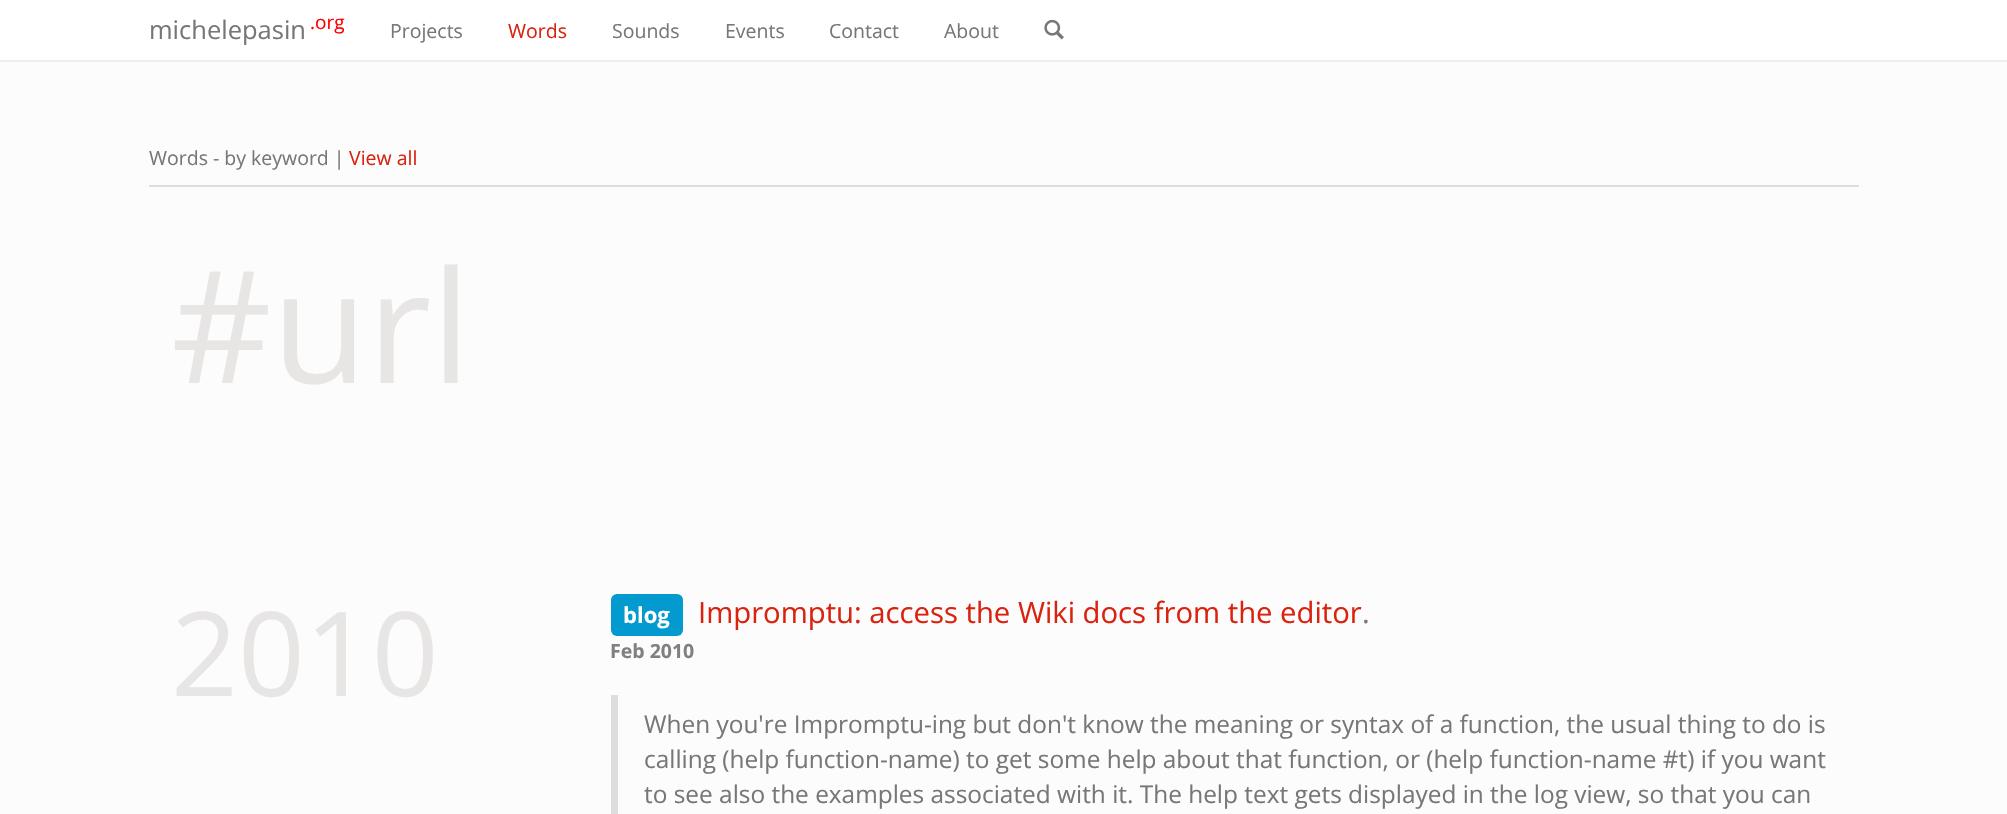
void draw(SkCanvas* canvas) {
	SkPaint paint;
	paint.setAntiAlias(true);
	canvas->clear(0xfffcfcfc);
	paint.setColor(0xffffffff);
	canvas->drawRect(SkRect::MakeXYWH(0, 0, 2007, 60), paint);
	paint.setColor(0xffeeeeee);
	canvas->drawRect(SkRect::MakeXYWH(0, 60, 2007, 2), paint);
	SkFont f1(fontMgr->matchFamilyStyle("Open Sans", SkFontStyle::Normal()), 25.5);
	f1.setSubpixel(true);
	paint.setColor(0xff777777);
	canvas->drawString("michelepasin", 149, 39, f1, paint);
	SkFont f2(fontMgr->matchFamilyStyle("Open Sans", SkFontStyle::Normal()), 19);
	f2.setSubpixel(true);
	paint.setColor(0xffff0000);
	canvas->drawString(".org", 310, 29, f2, paint);
	SkFont f3(fontMgr->matchFamilyStyle("Open Sans", SkFontStyle::Normal()), 19.5);
	f3.setSubpixel(true);
	paint.setColor(0xff777777);
	canvas->drawString("Projects", 390, 38, f3, paint);
	paint.setColor(0xffd9230f);
	canvas->drawString("Words", 508, 38, f3, paint);
	paint.setColor(0xff777777);
	canvas->drawString("Sounds", 612, 38, f3, paint);
	canvas->drawString("Events", 725, 38, f3, paint);
	canvas->drawString("Contact", 829, 38, f3, paint);
	canvas->drawString("About", 944, 38, f3, paint);
	canvas->drawImageRect(SkImages::DeferredFromEncodedData(SkData::MakeFromFileName("img1.png")), SkRect::MakeXYWH(1044, 19, 20, 21), SkSamplingOptions());
	paint.setColor(0xffdddddd);
	canvas->drawRect(SkRect::MakeXYWH(149, 185, 1710, 2), paint);
	paint.setColor(0xff777777);
	canvas->drawString("Words - by keyword |", 149, 165, f3, paint);
	paint.setColor(0xffd9230f);
	canvas->drawString("View all", 349, 165, f3, paint);
	SkFont f4(fontMgr->matchFamilyStyle("Open Sans", SkFontStyle::Normal()), 156);
	f4.setSubpixel(true);
	paint.setColor(0xffe8e5e5);
	canvas->drawString("#url", 171, 383, f4, paint);
	SkFont f5(fontMgr->matchFamilyStyle("Open Sans", SkFontStyle::Normal()), 117);
	f5.setSubpixel(true);
	canvas->drawString("2010", 171, 696, f5, paint);
	paint.setColor(0xff029acf);
	canvas->drawRoundRect(SkRect::MakeXYWH(611, 594, 72, 42), 6, 6, paint);
	SkFont f6(fontMgr->matchFamilyStyle("Open Sans", SkFontStyle::Bold()), 22);
	f6.setSubpixel(true);
	paint.setColor(0xffffffff);
	canvas->drawString("blog", 623, 623, f6, paint);
	SkFont f7(fontMgr->matchFamilyStyle("Open Sans", SkFontStyle::Normal()), 29.25);
	f7.setSubpixel(true);
	paint.setColor(0xffd9230f);
	canvas->drawString("Impromptu: access the Wiki docs from the editor", 698, 623, f7, paint);
	paint.setColor(0xff777777);
	canvas->drawString(".", 1362, 623, f7, paint);
	SkFont f8(fontMgr->matchFamilyStyle("Open Sans", SkFontStyle::Bold()), 19.5);
	f8.setSubpixel(true);
	paint.setColor(0xff808080);
	canvas->drawString("Feb 2010", 610, 658, f8, paint);
	paint.setColor(0xffdddddd);
	canvas->drawRect(SkRect::MakeXYWH(611, 695, 7, 119), paint);
	SkFont f9(fontMgr->matchFamilyStyle("Open Sans", SkFontStyle::Normal()), 24.4);
	f9.setSubpixel(true);
	paint.setColor(0xff777777);
	canvas->drawString("When you're Impromptu-ing but don't know the meaning or syntax of a function, the usual thing to do is", 644, 733, f9, paint);
	canvas->drawString("calling (help function-name) to get some help about that function, or (help function-name #t) if you want", 644, 768, f9, paint);
	canvas->drawString("to see also the examples associated with it. The help text gets displayed in the log view, so that you can", 644, 803, f9, paint);
}
